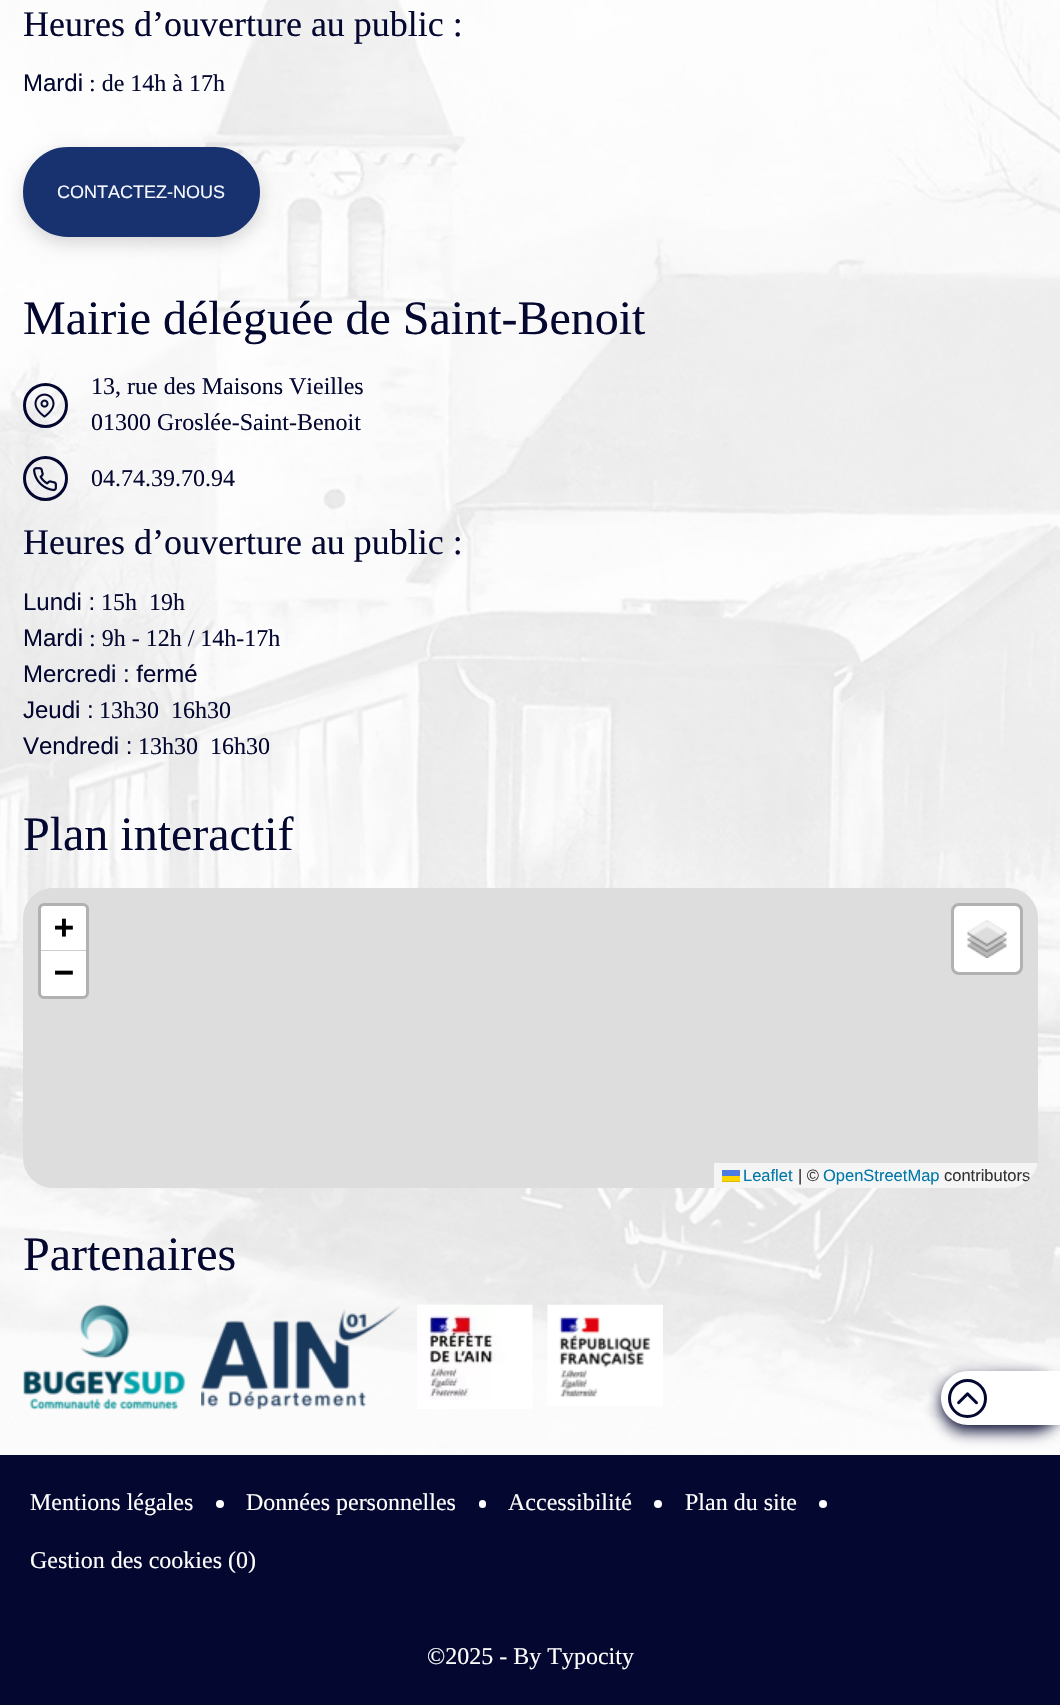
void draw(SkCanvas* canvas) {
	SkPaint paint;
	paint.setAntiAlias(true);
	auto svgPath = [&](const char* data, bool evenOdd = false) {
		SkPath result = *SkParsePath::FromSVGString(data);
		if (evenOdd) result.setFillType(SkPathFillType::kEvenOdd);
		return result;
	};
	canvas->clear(0xfff5f8ff);
	canvas->drawImageRect(SkImages::DeferredFromEncodedData(SkData::MakeFromFileName("img1.png")), SkRect::MakeXYWH(0, 0, 1060, 1455), SkSamplingOptions());
	SkFont f1(fontMgr->matchFamilyStyle("Liberation Serif", SkFontStyle::Normal()), 36);
	f1.setSubpixel(true);
	paint.setColor(0xff040730);
	canvas->drawString("Heures d’ouverture au public :", 23, 36, f1, paint);
	SkFont f2(fontMgr->matchFamilyStyle("Liberation Sans", SkFontStyle::Normal()), 24);
	f2.setSubpixel(true);
	canvas->drawString("Mardi", 23, 91, f2, paint);
	SkFont f3(fontMgr->matchFamilyStyle("Liberation Serif", SkFontStyle::Normal()), 24);
	f3.setSubpixel(true);
	canvas->drawString(": de 14h à 17h", 89, 91, f3, paint);
	paint.setColor(0x29000000);
	paint.setMaskFilter(SkMaskFilter::MakeBlur(kNormal_SkBlurStyle, 9));
	canvas->drawRoundRect(SkRect::MakeXYWH(23, 153, 237, 90), 45, 45, paint);
	paint.setMaskFilter(nullptr);
	paint.setColor(0xff183270);
	canvas->drawRoundRect(SkRect::MakeXYWH(25.5, 149.5, 232, 85), 42.5, 42.5, paint);
	paint.setStroke(true);
	paint.setStrokeWidth(5);
	canvas->drawRoundRect(SkRect::MakeXYWH(25.5, 149.5, 232, 85), 42.5, 42.5, paint);
	SkFont f4(fontMgr->matchFamilyStyle("Liberation Sans", SkFontStyle::Normal()), 18);
	f4.setSubpixel(true);
	paint.setStroke(false);
	paint.setColor(0xfff5f8ff);
	canvas->drawString("CONTACTEZ-NOUS", 57, 198, f4, paint);
	SkFont f5(fontMgr->matchFamilyStyle("Liberation Serif", SkFontStyle::Normal()), 48);
	f5.setSubpixel(true);
	paint.setColor(0xff040730);
	canvas->drawString("Mairie déléguée de Saint-Benoit", 23, 334, f5, paint);
	paint.setStroke(true);
	paint.setStrokeWidth(3);
	canvas->drawCircle(45.5, 405.5, 21, paint);
	canvas->drawImageRect(SkImages::DeferredFromEncodedData(SkData::MakeFromFileName("img2.png")), SkRect::MakeXYWH(34, 393, 21, 25), SkSamplingOptions());
	paint.setStroke(false);
	canvas->drawString("13, rue des Maisons Vieilles", 91, 394, f3, paint);
	canvas->drawString("01300 Groslée-Saint-Benoit", 91, 430, f3, paint);
	paint.setStroke(true);
	canvas->drawCircle(45.5, 478.5, 21, paint);
	canvas->drawImageRect(SkImages::DeferredFromEncodedData(SkData::MakeFromFileName("img3.png")), SkRect::MakeXYWH(33, 467, 24, 25), SkSamplingOptions());
	paint.setStroke(false);
	canvas->drawString("04.74.39.70.94", 91, 486, f3, paint);
	canvas->drawString("Heures d’ouverture au public :", 23, 554, f1, paint);
	canvas->drawString("Lundi :", 23, 610, f2, paint);
	canvas->drawString("15h  19h", 101, 610, f3, paint);
	canvas->drawString("Mardi", 23, 646, f2, paint);
	canvas->drawString(": 9h - 12h / 14h-17h", 89, 646, f3, paint);
	canvas->drawString("Mercredi : fermé", 23, 682, f2, paint);
	canvas->drawString("Jeudi :", 23, 718, f2, paint);
	canvas->drawString("13h30  16h30", 99, 718, f3, paint);
	canvas->drawString("Vendredi :", 23, 754, f2, paint);
	canvas->drawString("13h30  16h30", 138, 754, f3, paint);
	canvas->drawString("Plan interactif", 23, 850, f5, paint);
	paint.setColor(0xffdddddd);
	canvas->drawRoundRect(SkRect::MakeXYWH(23, 888, 1015, 300), 30, 30, paint);
	paint.setStroke(true);
	paint.setColor(0xffb1b1b1);
	canvas->drawRoundRect(SkRect::MakeXYWH(39.5, 904.5, 48, 93), 4.5, 4.5, paint);
	paint.setStroke(false);
	paint.setColor(0xffffffff);
	canvas->drawPath(svgPath("M44 906H83C84.5 906 86 907.5 86 909V951H41V909C41 907.5 42.5 906 44 906Z"), paint);
	paint.setColor(0xffcccccc);
	canvas->drawRect(SkRect::MakeXYWH(41, 950, 45, 1), paint);
	SkFont f6(fontMgr->matchFamilyStyle("DejaVu Sans Mono", SkFontStyle::Bold()), 33);
	f6.setSubpixel(true);
	paint.setColor(0xff000000);
	canvas->drawString("+", 54, 938, f6, paint);
	paint.setColor(0xffffffff);
	canvas->drawPath(svgPath("M41 951H86V993C86 994.5 84.5 996 83 996H44C42.5 996 41 994.5 41 993Z"), paint);
	paint.setColor(0xff000000);
	canvas->drawString("−", 54, 983, f6, paint);
	paint.setColor(0xffffffff);
	canvas->drawRoundRect(SkRect::MakeXYWH(954, 906, 66, 66), 5, 5, paint);
	paint.setStroke(true);
	paint.setColor(0x33000000);
	canvas->drawRoundRect(SkRect::MakeXYWH(952.5, 904.5, 69, 69), 6.5, 6.5, paint);
	canvas->drawImageRect(SkImages::DeferredFromEncodedData(SkData::MakeFromFileName("img4.png")), SkRect::MakeXYWH(967, 920, 40, 38), SkSamplingOptions());
	canvas->save();
	canvas->clipPath(svgPath("M53 888H1008C1024.5 888 1038 901.5 1038 918V1158C1038 1174.5 1024.5 1188 1008 1188H53C36.5 1188 23 1174.5 23 1158V918C23 901.5 36.5 888 53 888Z"), true);
	paint.setStroke(false);
	paint.setColor(0xb3ffffff);
	canvas->drawRect(SkRect::MakeXYWH(714, 1163, 324, 25), paint);
	canvas->restore();
	SkFont f7(fontMgr->matchFamilyStyle("Liberation Sans", SkFontStyle::Normal()), 16.5);
	f7.setSubpixel(true);
	paint.setColor(0xff0078a8);
	canvas->drawString("Leaflet", 743, 1181, f7, paint);
	paint.setColor(0xff4c7be1);
	canvas->drawRect(SkRect::MakeXYWH(722, 1170, 18, 6), paint);
	paint.setColor(0xffffd500);
	canvas->drawRect(SkRect::MakeXYWH(722, 1176, 18, 5), paint);
	paint.setColor(0xffe0bc00);
	canvas->drawRect(SkRect::MakeXYWH(722, 1181, 18, 1), paint);
	paint.setColor(0xff333333);
	canvas->drawString("| ©", 798, 1181, f7, paint);
	paint.setColor(0xff0078a8);
	canvas->drawString("OpenStreetMap", 823, 1181, f7, paint);
	canvas->save();
	canvas->clipPath(svgPath("M53 888H1008C1024.5 888 1038 901.5 1038 918V1158C1038 1174.5 1024.5 1188 1008 1188H53C36.5 1188 23 1174.5 23 1158V918C23 901.5 36.5 888 53 888Z"), true);
	paint.setColor(0xff333333);
	canvas->drawString("contributors", 944, 1181, f7, paint);
	canvas->restore();
	paint.setColor(0xff040730);
	canvas->drawString("Partenaires", 23, 1270, f5, paint);
	canvas->drawImageRect(SkImages::DeferredFromEncodedData(SkData::MakeFromFileName("img5.png")), SkRect::MakeXYWH(23, 1304, 163, 106), SkSamplingOptions());
	canvas->drawImageRect(SkImages::DeferredFromEncodedData(SkData::MakeFromFileName("img6.png")), SkRect::MakeXYWH(201, 1306, 200, 104), SkSamplingOptions());
	canvas->drawImageRect(SkImages::DeferredFromEncodedData(SkData::MakeFromFileName("img7.png")), SkRect::MakeXYWH(417, 1304, 116, 105), SkSamplingOptions());
	canvas->drawImageRect(SkImages::DeferredFromEncodedData(SkData::MakeFromFileName("img8.png")), SkRect::MakeXYWH(547, 1304, 116, 102), SkSamplingOptions());
	canvas->drawRect(SkRect::MakeXYWH(0, 1455, 1060, 250), paint);
	paint.setColor(0xffffffff);
	canvas->drawString("Mentions légales", 30, 1510, f3, paint);
	canvas->drawCircle(220, 1504, 4, paint);
	canvas->drawString("Données personnelles", 246, 1510, f3, paint);
	canvas->drawRoundRect(SkRect::MakeXYWH(479, 1500, 7, 8), 3.5, 3.5, paint);
	canvas->drawString("Accessibilité", 508, 1510, f3, paint);
	canvas->drawCircle(658, 1504, 4, paint);
	canvas->drawString("Plan du site", 685, 1510, f3, paint);
	canvas->drawCircle(823, 1504, 4, paint);
	canvas->drawString("Gestion des cookies (0)", 30, 1568, f3, paint);
	canvas->drawString("©2025 - By Typocity", 427, 1664, f3, paint);
	paint.setColor(0xff040730);
	paint.setMaskFilter(SkMaskFilter::MakeBlur(kNormal_SkBlurStyle, 7.5));
	canvas->drawRoundRect(SkRect::MakeXYWH(941, 1377, 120, 54), 27, 27, paint);
	paint.setMaskFilter(nullptr);
	paint.setColor(0xffffffff);
	canvas->drawPath(svgPath("M968 1371H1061V1425H968C953 1425 941 1413 941 1398C941 1383 953 1371 968 1371Z"), paint);
	paint.setStroke(true);
	paint.setColor(0xff040730);
	canvas->drawCircle(967.5, 1398.5, 18, paint);
	canvas->drawImageRect(SkImages::DeferredFromEncodedData(SkData::MakeFromFileName("img9.png")), SkRect::MakeXYWH(957, 1392, 21, 13), SkSamplingOptions());
}
